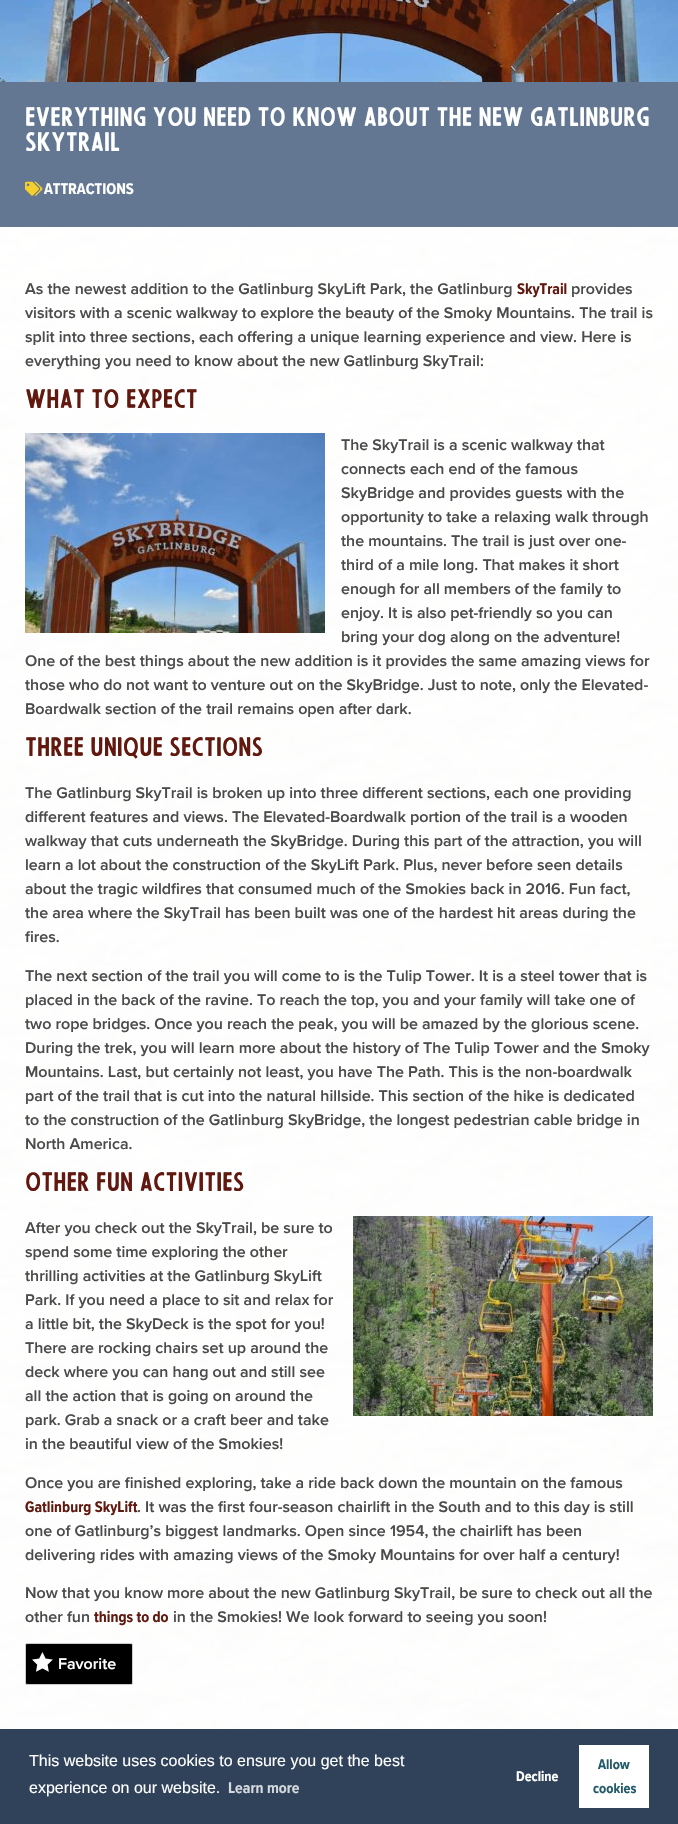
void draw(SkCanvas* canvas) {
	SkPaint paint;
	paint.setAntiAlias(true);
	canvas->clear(0xffffffff);
	canvas->drawImageRect(SkImages::DeferredFromEncodedData(SkData::MakeFromFileName("img1.png")), SkRect::MakeXYWH(0, 227, 678, 1502), SkSamplingOptions());
	paint.setColor(0xff637793);
	canvas->drawRect(SkRect::MakeXYWH(0, 82, 678, 145), paint);
	canvas->drawImageRect(SkImages::DeferredFromEncodedData(SkData::MakeFromFileName("img2.png")), SkRect::MakeXYWH(0, 0, 678, 82), SkSamplingOptions());
	SkFont f1(fontMgr->matchFamilyStyle("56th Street", SkFontStyle::Normal()), 25);
	f1.setSubpixel(true);
	paint.setColor(0xffffffff);
	canvas->drawString("EVERYTHING YOU NEED TO KNOW ABOUT THE NEW GATLINBURG", 25, 126, f1, paint);
	canvas->drawString("SKYTRAIL", 25, 151, f1, paint);
	canvas->drawImageRect(SkImages::DeferredFromEncodedData(SkData::MakeFromFileName("img3.png")), SkRect::MakeXYWH(25, 181, 18, 15), SkSamplingOptions());
	SkFont f2(fontMgr->matchFamilyStyle("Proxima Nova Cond", SkFontStyle::Bold()), 16);
	f2.setSubpixel(true);
	canvas->drawString("ATTRACTIONS", 44, 194, f2, paint);
	paint.setColor(0xd9ffffff);
	canvas->drawRect(SkRect::MakeXYWH(0, 227, 678, 1483), paint);
	SkFont f3(fontMgr->matchFamilyStyle("Proxima Nova", SkFontStyle(600, SkFontStyle::kNormal_Width, SkFontStyle::kUpright_Slant)), 16);
	f3.setSubpixel(true);
	paint.setColor(0xff4b4b4b);
	canvas->drawString("As the newest addition to the Gatlinburg SkyLift Park, the Gatlinburg", 25, 294, f3, paint);
	paint.setColor(0xff61180f);
	canvas->drawString("SkyTrail", 517, 294, f2, paint);
	paint.setColor(0xff4b4b4b);
	canvas->drawString("provides", 571, 294, f3, paint);
	canvas->drawString("visitors with a scenic walkway to explore the beauty of the Smoky Mountains. The trail is", 25, 318, f3, paint);
	canvas->drawString("split into three sections, each offering a unique learning experience and view. Here is", 25, 342, f3, paint);
	canvas->drawString("everything you need to know about the new Gatlinburg SkyTrail:", 25, 366, f3, paint);
	paint.setColor(0xff61180f);
	canvas->drawString("WHAT TO EXPECT", 25, 408, f1, paint);
	canvas->drawImageRect(SkImages::DeferredFromEncodedData(SkData::MakeFromFileName("img4.png")), SkRect::MakeXYWH(25, 433, 300, 200), SkSamplingOptions());
	paint.setColor(0xff4b4b4b);
	canvas->drawString("The SkyTrail is a scenic walkway that", 341, 450, f3, paint);
	canvas->drawString("connects each end of the famous", 341, 474, f3, paint);
	canvas->drawString("SkyBridge and provides guests with the", 341, 498, f3, paint);
	canvas->drawString("opportunity to take a relaxing walk through", 341, 522, f3, paint);
	canvas->drawString("the mountains. The trail is just over one-", 341, 546, f3, paint);
	canvas->drawString("third of a mile long. That makes it short", 341, 570, f3, paint);
	canvas->drawString("enough for all members of the family to", 341, 594, f3, paint);
	canvas->drawString("enjoy. It is also pet-friendly so you can", 341, 618, f3, paint);
	canvas->drawString("bring your dog along on the adventure!", 341, 642, f3, paint);
	canvas->drawString("One of the best things about the new addition is it provides the same amazing views for", 25, 666, f3, paint);
	canvas->drawString("those who do not want to venture out on the SkyBridge. Just to note, only the Elevated-", 25, 690, f3, paint);
	canvas->drawString("Boardwalk section of the trail remains open after dark.", 25, 714, f3, paint);
	paint.setColor(0xff61180f);
	canvas->drawString("THREE UNIQUE SECTIONS", 25, 756, f1, paint);
	paint.setColor(0xff4b4b4b);
	canvas->drawString("The Gatlinburg SkyTrail is broken up into three different sections, each one providing", 25, 798, f3, paint);
	canvas->drawString("different features and views. The Elevated-Boardwalk portion of the trail is a wooden", 25, 822, f3, paint);
	canvas->drawString("walkway that cuts underneath the SkyBridge. During this part of the attraction, you will", 25, 846, f3, paint);
	canvas->drawString("learn a lot about the construction of the SkyLift Park. Plus, never before seen details", 25, 870, f3, paint);
	canvas->drawString("about the tragic wildfires that consumed much of the Smokies back in 2016. Fun fact,", 25, 894, f3, paint);
	canvas->drawString("the area where the SkyTrail has been built was one of the hardest hit areas during the", 25, 918, f3, paint);
	canvas->drawString("fires.", 25, 942, f3, paint);
	canvas->drawString("The next section of the trail you will come to is the Tulip Tower. It is a steel tower that is", 25, 981, f3, paint);
	canvas->drawString("placed in the back of the ravine. To reach the top, you and your family will take one of", 25, 1005, f3, paint);
	canvas->drawString("two rope bridges. Once you reach the peak, you will be amazed by the glorious scene.", 25, 1029, f3, paint);
	canvas->drawString("During the trek, you will learn more about the history of The Tulip Tower and the Smoky", 25, 1053, f3, paint);
	canvas->drawString("Mountains. Last, but certainly not least, you have The Path. This is the non-boardwalk", 25, 1077, f3, paint);
	canvas->drawString("part of the trail that is cut into the natural hillside. This section of the hike is dedicated", 25, 1101, f3, paint);
	canvas->drawString("to the construction of the Gatlinburg SkyBridge, the longest pedestrian cable bridge in", 25, 1125, f3, paint);
	canvas->drawString("North America.", 25, 1149, f3, paint);
	paint.setColor(0xff61180f);
	canvas->drawString("OTHER FUN ACTIVITIES", 25, 1191, f1, paint);
	paint.setColor(0xff4b4b4b);
	canvas->drawString("After you check out the SkyTrail, be sure to", 25, 1233, f3, paint);
	canvas->drawImageRect(SkImages::DeferredFromEncodedData(SkData::MakeFromFileName("img5.png")), SkRect::MakeXYWH(353, 1216, 300, 200), SkSamplingOptions());
	canvas->drawString("spend some time exploring the other", 25, 1257, f3, paint);
	canvas->drawString("thrilling activities at the Gatlinburg SkyLift", 25, 1281, f3, paint);
	canvas->drawString("Park. If you need a place to sit and relax for", 25, 1305, f3, paint);
	canvas->drawString("a little bit, the SkyDeck is the spot for you!", 25, 1329, f3, paint);
	canvas->drawString("There are rocking chairs set up around the", 25, 1353, f3, paint);
	canvas->drawString("deck where you can hang out and still see", 25, 1377, f3, paint);
	canvas->drawString("all the action that is going on around the", 25, 1401, f3, paint);
	canvas->drawString("park. Grab a snack or a craft beer and take", 25, 1425, f3, paint);
	canvas->drawString("in the beautiful view of the Smokies!", 25, 1449, f3, paint);
	canvas->drawString("Once you are finished exploring, take a ride back down the mountain on the famous", 25, 1488, f3, paint);
	paint.setColor(0xff61180f);
	canvas->drawString("Gatlinburg SkyLift", 25, 1512, f2, paint);
	paint.setColor(0xff4b4b4b);
	canvas->drawString(". It was the first four-season chairlift in the South and to this day is still", 137, 1512, f3, paint);
	canvas->drawString("one of Gatlinburg’s biggest landmarks. Open since 1954, the chairlift has been", 25, 1536, f3, paint);
	canvas->drawString("delivering rides with amazing views of the Smoky Mountains for over half a century!", 25, 1560, f3, paint);
	canvas->drawString("Now that you know more about the new Gatlinburg SkyTrail, be sure to check out all the", 25, 1598, f3, paint);
	canvas->drawString("other fun", 25, 1622, f3, paint);
	paint.setColor(0xff61180f);
	canvas->drawString("things to do", 94, 1622, f2, paint);
	paint.setColor(0xff4b4b4b);
	canvas->drawString("in the Smokies! We look forward to seeing you soon!", 173, 1622, f3, paint);
	paint.setColor(0xff000000);
	canvas->drawRoundRect(SkRect::MakeXYWH(25.5, 1643.5, 107, 41), 1.5, 1.5, paint);
	paint.setStroke(true);
	paint.setStrokeWidth(1);
	paint.setColor(0xffcccccc);
	canvas->drawRoundRect(SkRect::MakeXYWH(25.5, 1643.5, 107, 41), 1.5, 1.5, paint);
	canvas->drawImageRect(SkImages::DeferredFromEncodedData(SkData::MakeFromFileName("img6.png")), SkRect::MakeXYWH(32, 1652, 21, 20), SkSamplingOptions());
	paint.setStroke(false);
	paint.setColor(0xffffffff);
	canvas->drawString("Favorite", 58, 1669, f3, paint);
	paint.setColor(0xd9ffffff);
	canvas->drawRect(SkRect::MakeXYWH(0, 1710, 678, 19), paint);
	paint.setColor(0xff2f425a);
	canvas->drawRect(SkRect::MakeXYWH(0, 1729, 678, 95), paint);
	SkFont f4(fontMgr->matchFamilyStyle("Liberation Sans", SkFontStyle::Normal()), 16);
	f4.setSubpixel(true);
	paint.setColor(0xffffffff);
	canvas->drawString("This website uses cookies to ensure you get the best", 29, 1766, f4, paint);
	canvas->drawString("experience on our website.", 29, 1793, f4, paint);
	paint.setColor(0xffd5d9de);
	canvas->drawString("Learn more", 228, 1793, f2, paint);
	SkFont f5(fontMgr->matchFamilyStyle("Proxima Nova Cond", SkFontStyle::Bold()), 14.5);
	f5.setSubpixel(true);
	paint.setColor(0xffffffff);
	canvas->drawString("Decline", 516, 1781, f5, paint);
	canvas->drawRect(SkRect::MakeXYWH(579, 1745, 70, 63), paint);
	paint.setColor(0xff225a6a);
	canvas->drawString("Allow", 598, 1769, f5, paint);
	canvas->drawString("cookies", 593, 1793, f5, paint);
}
